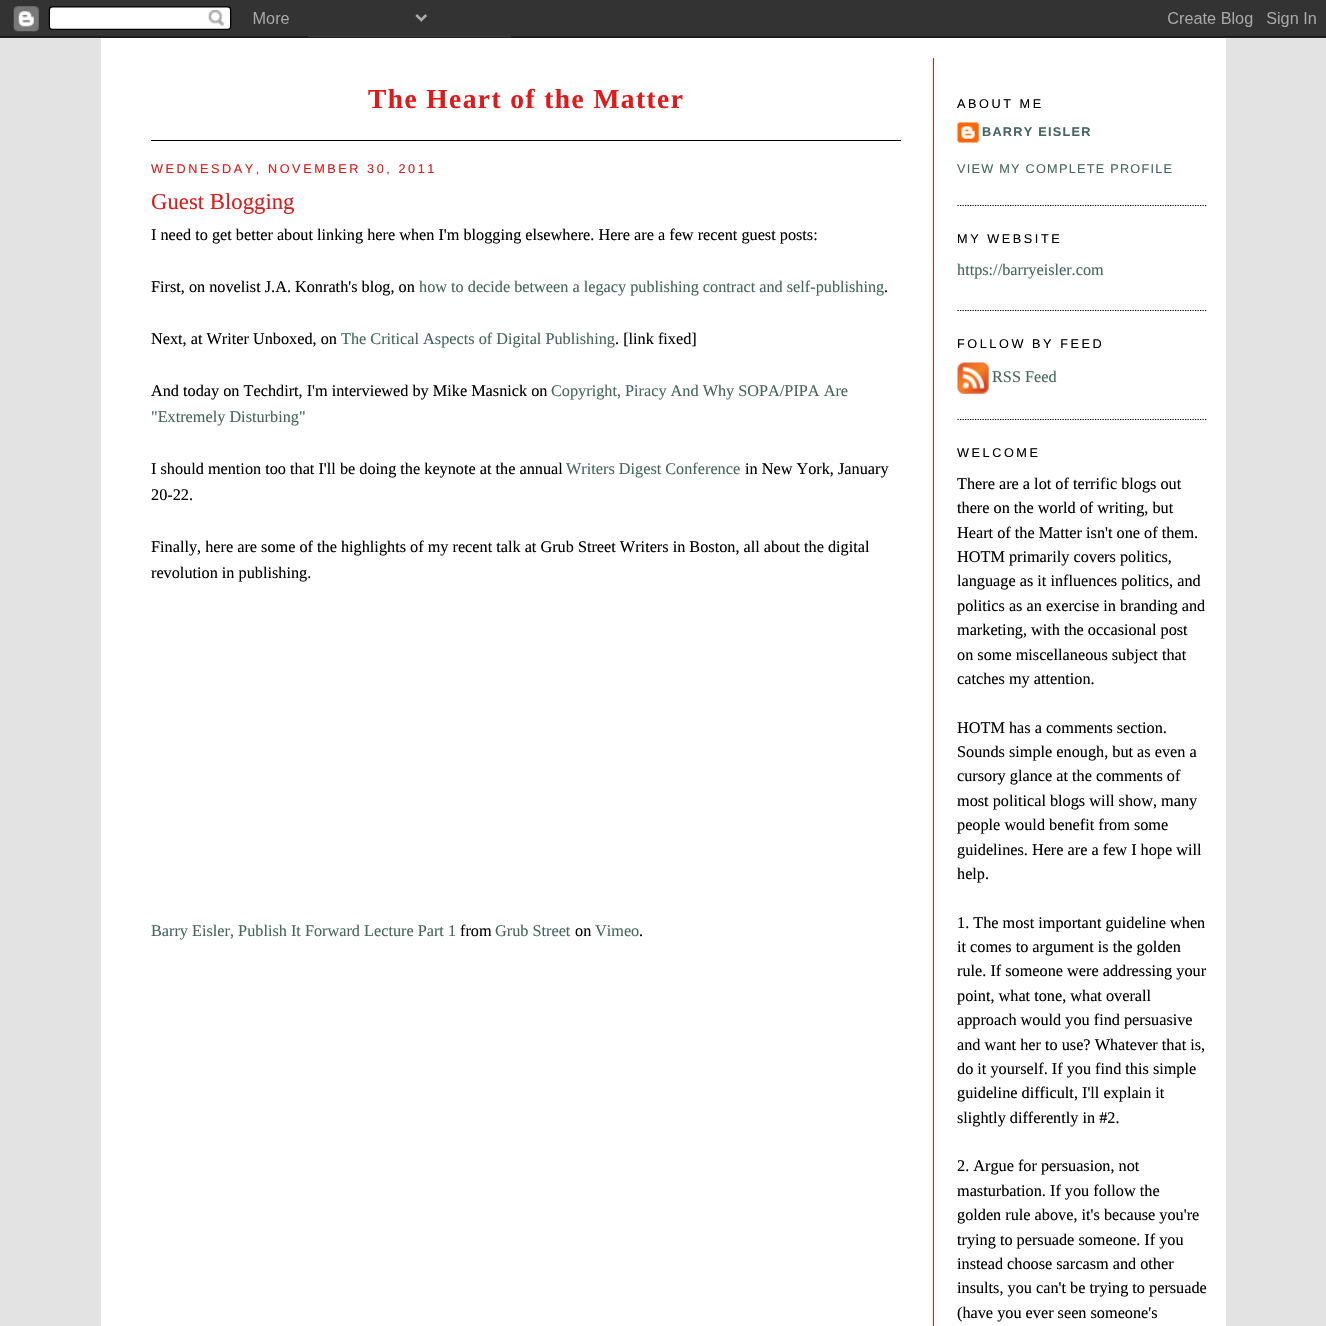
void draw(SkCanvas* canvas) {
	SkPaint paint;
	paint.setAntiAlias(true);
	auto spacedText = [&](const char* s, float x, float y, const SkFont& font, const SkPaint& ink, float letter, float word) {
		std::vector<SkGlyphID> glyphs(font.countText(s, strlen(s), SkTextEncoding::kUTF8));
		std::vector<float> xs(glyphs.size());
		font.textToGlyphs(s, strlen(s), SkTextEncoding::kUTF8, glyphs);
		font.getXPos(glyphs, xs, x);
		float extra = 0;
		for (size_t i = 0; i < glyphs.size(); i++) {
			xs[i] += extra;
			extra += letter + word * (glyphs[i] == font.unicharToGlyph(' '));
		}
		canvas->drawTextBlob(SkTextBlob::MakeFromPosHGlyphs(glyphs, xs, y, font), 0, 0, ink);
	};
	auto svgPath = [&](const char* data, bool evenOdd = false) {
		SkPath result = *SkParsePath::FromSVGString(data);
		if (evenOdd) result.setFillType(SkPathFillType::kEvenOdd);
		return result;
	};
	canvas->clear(0xffe4e3e3);
	canvas->drawImageRect(SkImages::DeferredFromEncodedData(SkData::MakeFromFileName("img1.png")), SkRect::MakeXYWH(0, 0, 1326, 38), SkSamplingOptions());
	paint.setColor(0xffffffff);
	canvas->drawRect(SkRect::MakeXYWH(101, 38, 1125, 1288), paint);
	paint.setColor(0xffde1b1b);
	canvas->drawRect(SkRect::MakeXYWH(933, 58, 1, 1268), paint);
	paint.setColor(0xff000000);
	canvas->drawRect(SkRect::MakeXYWH(151, 140, 750, 1), paint);
	SkFont f1(fontMgr->matchFamilyStyle("Liberation Serif", SkFontStyle::Bold()), 27.5);
	f1.setSubpixel(true);
	paint.setColor(0xffde1b1b);
	spacedText("The Heart of the Matter", 368, 108, f1, paint, 1.4, 0);
	SkFont f2(fontMgr->matchFamilyStyle("Liberation Sans", SkFontStyle::Normal()), 12.7);
	f2.setSubpixel(true);
	spacedText("WEDNESDAY, NOVEMBER 30, 2011", 151, 173, f2, paint, 2.55, 0);
	SkFont f3(fontMgr->matchFamilyStyle("Liberation Serif", SkFontStyle::Normal()), 22.75);
	f3.setSubpixel(true);
	canvas->drawString("Guest Blogging", 151, 209, f3, paint);
	SkFont f4(fontMgr->matchFamilyStyle("Liberation Serif", SkFontStyle::Normal()), 16.25);
	f4.setSubpixel(true);
	paint.setColor(0xff000000);
	canvas->drawString("I need to get better about linking here when I'm blogging elsewhere. Here are a few recent guest posts:", 151, 240, f4, paint);
	canvas->drawString("First, on novelist J.A. Konrath's blog, on", 151, 292, f4, paint);
	paint.setColor(0xff47655c);
	canvas->drawString("how to decide between a legacy publishing contract and self-publishing", 419, 292, f4, paint);
	paint.setColor(0xff000000);
	canvas->drawString(".", 884, 292, f4, paint);
	canvas->drawString("Next, at Writer Unboxed, on", 151, 344, f4, paint);
	paint.setColor(0xff47655c);
	canvas->drawString("The Critical Aspects of Digital Publishing", 341, 344, f4, paint);
	paint.setColor(0xff000000);
	canvas->drawString(". [link fixed]", 615, 344, f4, paint);
	canvas->drawString("And today on Techdirt, I'm interviewed by Mike Masnick on", 151, 396, f4, paint);
	paint.setColor(0xff47655c);
	canvas->drawString("Copyright, Piracy And Why SOPA/PIPA Are", 551, 396, f4, paint);
	canvas->drawString("\"Extremely Disturbing\"", 151, 422, f4, paint);
	paint.setColor(0xff000000);
	canvas->drawString("I should mention too that I'll be doing the keynote at the annual", 151, 474, f4, paint);
	paint.setColor(0xff47655c);
	canvas->drawString("Writers Digest Conference", 566, 474, f4, paint);
	paint.setColor(0xff000000);
	canvas->drawString("in New York, January", 745, 474, f4, paint);
	canvas->drawString("20-22.", 151, 500, f4, paint);
	canvas->drawString("Finally, here are some of the highlights of my recent talk at Grub Street Writers in Boston, all about the digital", 151, 552, f4, paint);
	canvas->drawString("revolution in publishing.", 151, 578, f4, paint);
	paint.setColor(0xff47655c);
	canvas->drawString("Barry Eisler, Publish It Forward Lecture Part 1", 151, 936, f4, paint);
	paint.setColor(0xff000000);
	canvas->drawString("from", 460, 936, f4, paint);
	paint.setColor(0xff47655c);
	canvas->drawString("Grub Street", 495, 936, f4, paint);
	paint.setColor(0xff000000);
	canvas->drawString("on", 575, 936, f4, paint);
	paint.setColor(0xff47655c);
	canvas->drawString("Vimeo", 595, 936, f4, paint);
	paint.setColor(0xff000000);
	canvas->drawString(".", 639, 936, f4, paint);
	paint.setStroke(true);
	paint.setStrokeWidth(1.2);
	paint.setPathEffect(SkDashPathEffect::Make({{1.25f, 1.25f}}, 0));
	canvas->drawPath(svgPath("M957.5 205.5H1207.5"), paint);
	paint.setPathEffect(nullptr);
	paint.setStroke(false);
	spacedText("ABOUT ME", 957, 108, f2, paint, 2.55, 0);
	canvas->drawImageRect(SkImages::DeferredFromEncodedData(SkData::MakeFromFileName("img2.png")), SkRect::MakeXYWH(957, 122, 22, 21), SkSamplingOptions());
	SkFont f5(fontMgr->matchFamilyStyle("Liberation Sans", SkFontStyle::Bold()), 12.7);
	f5.setSubpixel(true);
	paint.setColor(0xff47655c);
	spacedText("BARRY EISLER", 982, 136, f5, paint, 1.25, 0);
	spacedText("VIEW MY COMPLETE PROFILE", 957, 173, f2, paint, 1.25, 0);
	paint.setStroke(true);
	paint.setColor(0xff000000);
	paint.setPathEffect(SkDashPathEffect::Make({{1.25f, 1.25f}}, 0));
	canvas->drawPath(svgPath("M957.5 310.5H1207.5"), paint);
	paint.setPathEffect(nullptr);
	paint.setStroke(false);
	spacedText("MY WEBSITE", 957, 243, f2, paint, 2.55, 0);
	paint.setColor(0xff47655c);
	canvas->drawString("https://barryeisler.com", 957, 275, f4, paint);
	paint.setStroke(true);
	paint.setColor(0xff000000);
	paint.setPathEffect(SkDashPathEffect::Make({{1.25f, 1.25f}}, 0));
	canvas->drawPath(svgPath("M957.5 419.5H1207.5"), paint);
	paint.setPathEffect(nullptr);
	paint.setStroke(false);
	spacedText("FOLLOW BY FEED", 957, 348, f2, paint, 2.55, 0);
	canvas->drawImageRect(SkImages::DeferredFromEncodedData(SkData::MakeFromFileName("img3.png")), SkRect::MakeXYWH(957, 362, 32, 32), SkSamplingOptions());
	paint.setColor(0xff47655c);
	canvas->drawString("RSS Feed", 992, 382, f4, paint);
	paint.setColor(0xff000000);
	spacedText("WELCOME", 957, 457, f2, paint, 2.55, 0);
	canvas->drawString("There are a lot of terrific blogs out", 957, 489, f4, paint);
	canvas->drawString("there on the world of writing, but", 957, 513, f4, paint);
	canvas->drawString("Heart of the Matter isn't one of them.", 957, 538, f4, paint);
	canvas->drawString("HOTM primarily covers politics,", 957, 562, f4, paint);
	canvas->drawString("language as it influences politics, and", 957, 586, f4, paint);
	canvas->drawString("politics as an exercise in branding and", 957, 611, f4, paint);
	canvas->drawString("marketing, with the occasional post", 957, 635, f4, paint);
	canvas->drawString("on some miscellaneous subject that", 957, 660, f4, paint);
	canvas->drawString("catches my attention.", 957, 684, f4, paint);
	canvas->drawString("HOTM has a comments section.", 957, 733, f4, paint);
	canvas->drawString("Sounds simple enough, but as even a", 957, 757, f4, paint);
	canvas->drawString("cursory glance at the comments of", 957, 781, f4, paint);
	canvas->drawString("most political blogs will show, many", 957, 806, f4, paint);
	canvas->drawString("people would benefit from some", 957, 830, f4, paint);
	canvas->drawString("guidelines. Here are a few I hope will", 957, 855, f4, paint);
	canvas->drawString("help.", 957, 879, f4, paint);
	canvas->drawString("1. The most important guideline when", 957, 928, f4, paint);
	canvas->drawString("it comes to argument is the golden", 957, 952, f4, paint);
	canvas->drawString("rule. If someone were addressing your", 957, 976, f4, paint);
	canvas->drawString("point, what tone, what overall", 957, 1001, f4, paint);
	canvas->drawString("approach would you find persuasive", 957, 1025, f4, paint);
	canvas->drawString("and want her to use? Whatever that is,", 957, 1050, f4, paint);
	canvas->drawString("do it yourself. If you find this simple", 957, 1074, f4, paint);
	canvas->drawString("guideline difficult, I'll explain it", 957, 1098, f4, paint);
	canvas->drawString("slightly differently in #2.", 957, 1123, f4, paint);
	canvas->drawString("2. Argue for persuasion, not", 957, 1171, f4, paint);
	canvas->drawString("masturbation. If you follow the", 957, 1196, f4, paint);
	canvas->drawString("golden rule above, it's because you're", 957, 1220, f4, paint);
	canvas->drawString("trying to persuade someone. If you", 957, 1245, f4, paint);
	canvas->drawString("instead choose sarcasm and other", 957, 1269, f4, paint);
	canvas->drawString("insults, you can't be trying to persuade", 957, 1293, f4, paint);
	canvas->drawString("(have you ever seen someone's", 957, 1318, f4, paint);
}
